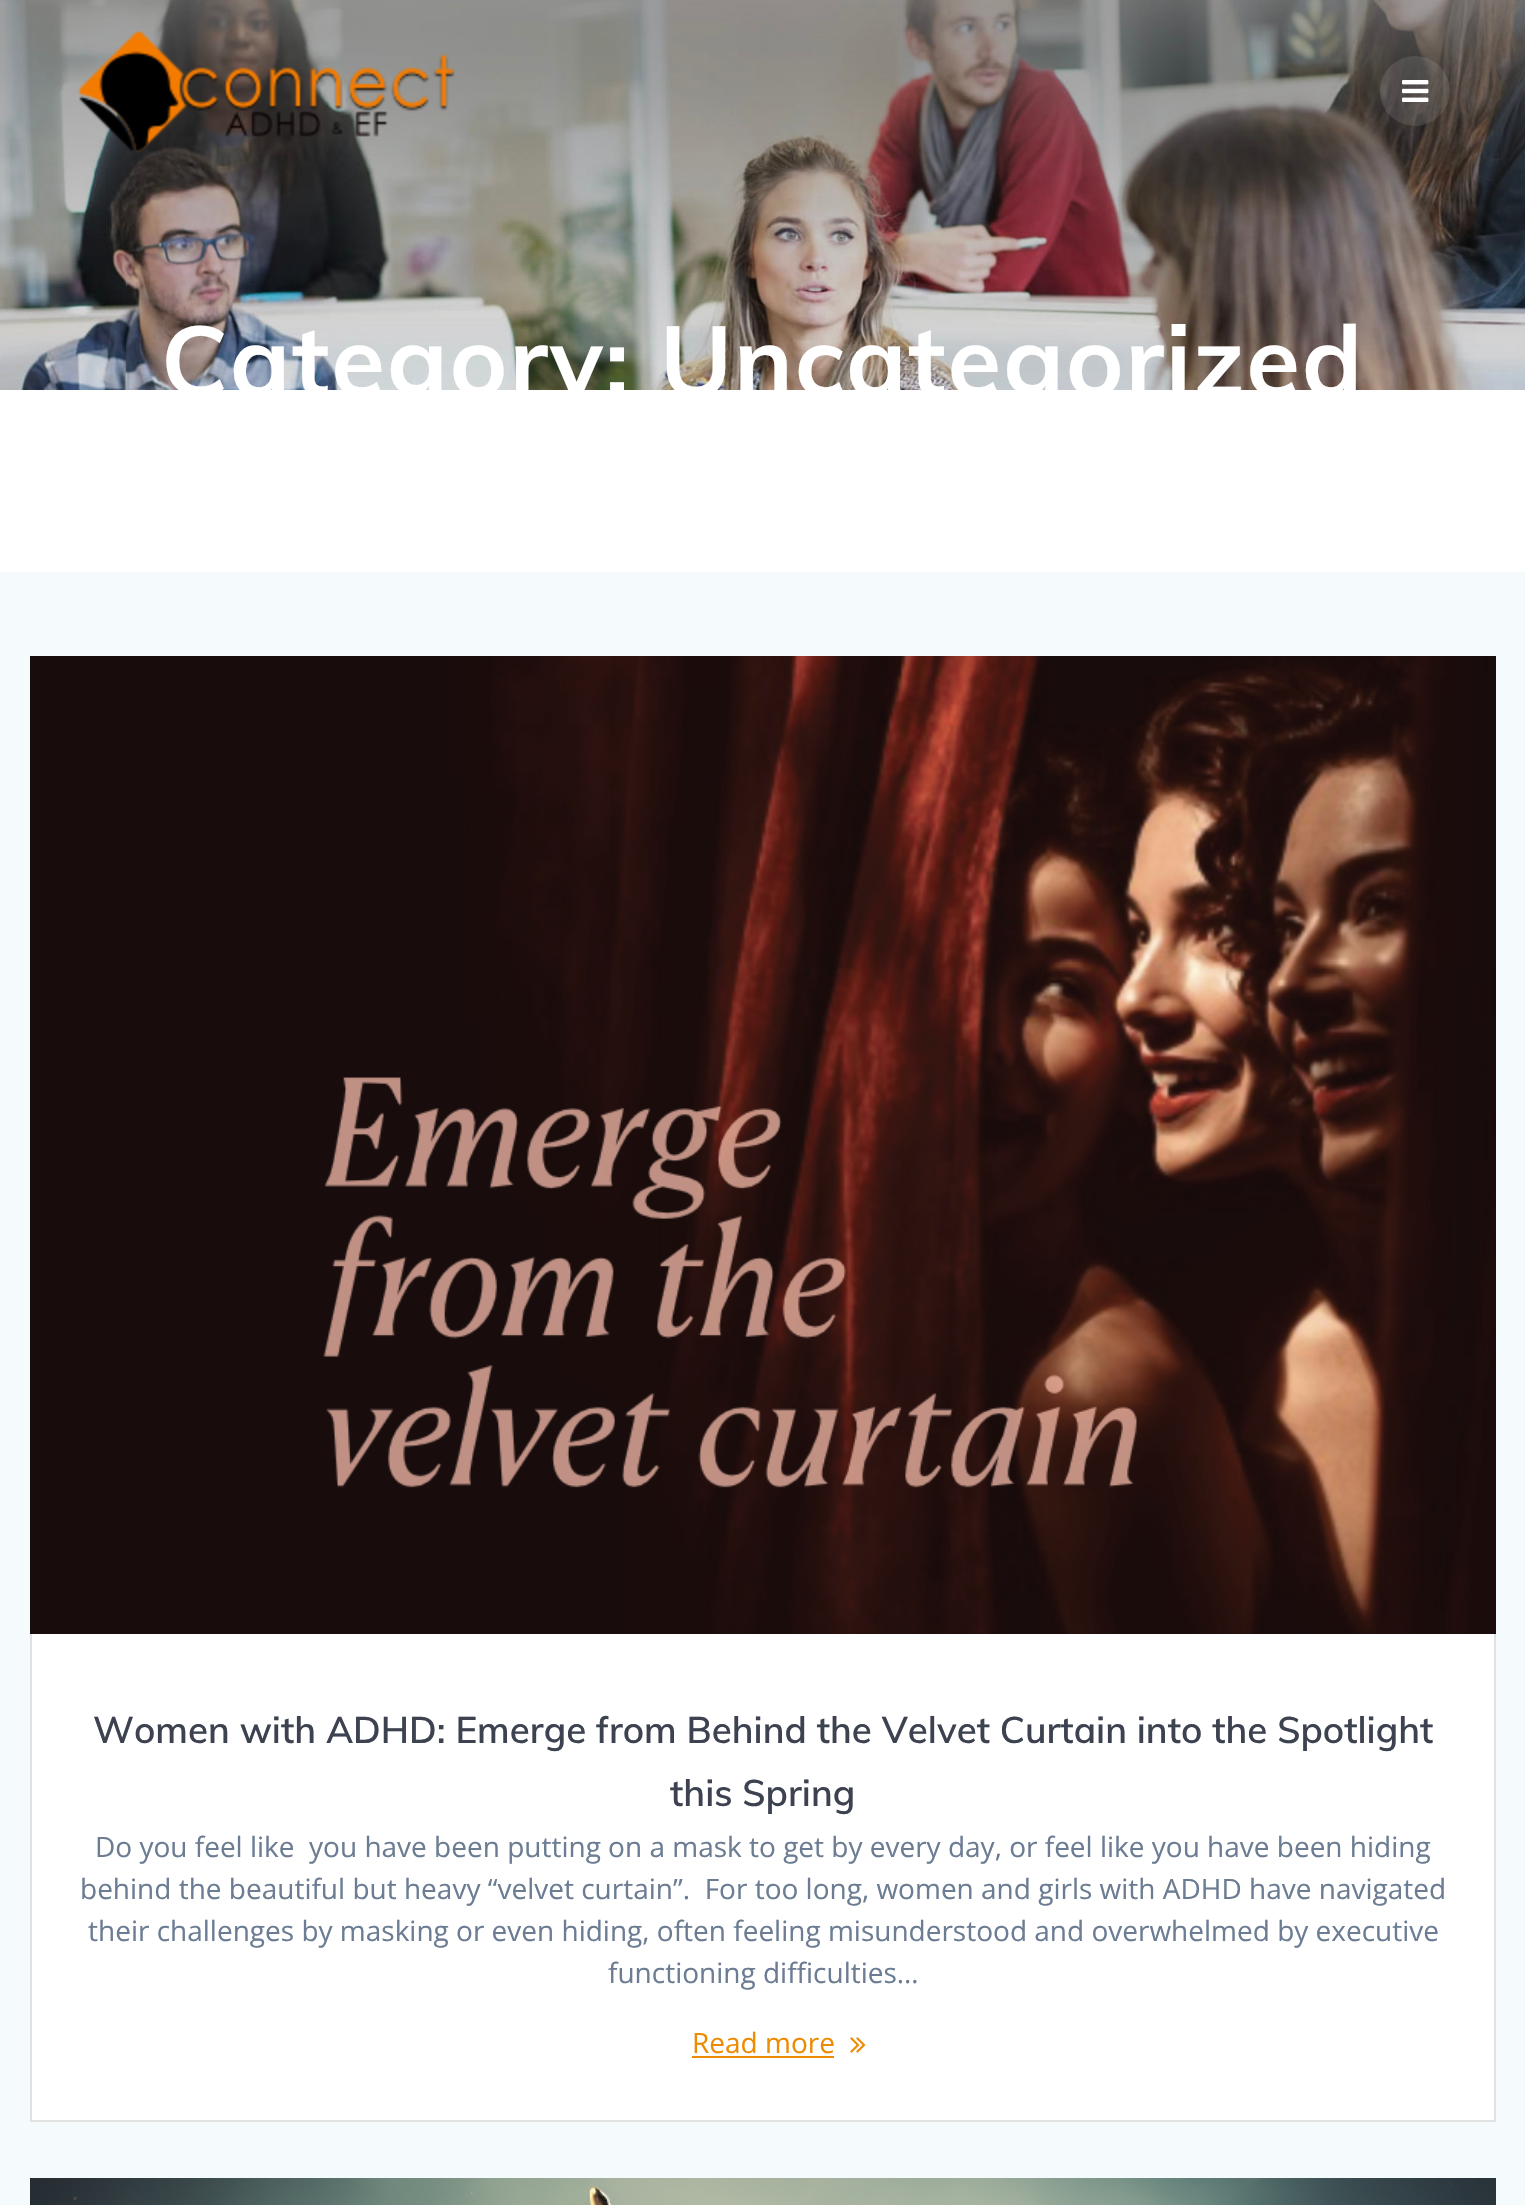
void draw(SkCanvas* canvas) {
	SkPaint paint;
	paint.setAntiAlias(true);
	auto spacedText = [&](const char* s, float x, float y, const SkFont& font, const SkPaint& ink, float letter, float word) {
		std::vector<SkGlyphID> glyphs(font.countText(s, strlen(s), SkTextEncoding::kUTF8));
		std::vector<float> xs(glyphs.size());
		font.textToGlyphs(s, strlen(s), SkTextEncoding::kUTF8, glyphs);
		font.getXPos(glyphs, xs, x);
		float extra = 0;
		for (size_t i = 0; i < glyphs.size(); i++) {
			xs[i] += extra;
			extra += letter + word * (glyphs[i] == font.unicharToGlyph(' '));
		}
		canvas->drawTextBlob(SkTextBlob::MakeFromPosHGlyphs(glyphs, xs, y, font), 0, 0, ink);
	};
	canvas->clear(0xffffffff);
	canvas->drawImageRect(SkImages::DeferredFromEncodedData(SkData::MakeFromFileName("img3.png")), SkRect::MakeXYWH(0, 0, 1525, 390), SkSamplingOptions());
	canvas->drawImageRect(SkImages::DeferredFromEncodedData(SkData::MakeFromFileName("img1.png")), SkRect::MakeXYWH(77, 31, 378, 122), SkSamplingOptions());
	paint.setColor(0x1affffff);
	canvas->drawCircle(1415, 91, 35, paint);
	canvas->drawImageRect(SkImages::DeferredFromEncodedData(SkData::MakeFromFileName("img2.png")), SkRect::MakeXYWH(1402, 80, 27, 22), SkSamplingOptions());
	SkFont f1(fontMgr->matchFamilyStyle("Muli", SkFontStyle::Bold()), 98);
	f1.setSubpixel(true);
	paint.setColor(0xffffffff);
	spacedText("Category: Uncategorized", 161, 396, f1, paint, 1.8, 0);
	paint.setColor(0xfff5fafd);
	canvas->drawRect(SkRect::MakeXYWH(0, 572, 1525, 1633), paint);
	paint.setColor(0xffffffff);
	canvas->drawRect(SkRect::MakeXYWH(32, 1634, 1462, 486), paint);
	paint.setStroke(true);
	paint.setStrokeWidth(2);
	paint.setColor(0xffe0e1e1);
	canvas->drawRect(SkRect::MakeXYWH(31, 657, 1464, 1464), paint);
	canvas->drawImageRect(SkImages::DeferredFromEncodedData(SkData::MakeFromFileName("img4.png")), SkRect::MakeXYWH(30, 656, 1466, 978), SkSamplingOptions());
	SkFont f2(fontMgr->matchFamilyStyle("Muli", SkFontStyle(600, SkFontStyle::kNormal_Width, SkFontStyle::kUpright_Slant)), 36.75);
	f2.setSubpixel(true);
	paint.setStroke(false);
	paint.setColor(0xff3c424f);
	canvas->drawString("Women with ADHD: Emerge from Behind the Velvet Curtain into the Spotlight", 93, 1743, f2, paint);
	canvas->drawString("this Spring", 670, 1806, f2, paint);
	SkFont f3(fontMgr->matchFamilyStyle("Open Sans", SkFontStyle::Normal()), 28);
	f3.setSubpixel(true);
	paint.setColor(0xff6b7c93);
	canvas->drawString("Do you feel like  you have been putting on a mask to get by every day, or feel like you have been hiding", 95, 1857, f3, paint);
	canvas->drawString("behind the beautiful but heavy “velvet curtain”.  For too long, women and girls with ADHD have navigated", 80, 1899, f3, paint);
	canvas->drawString("their challenges by masking or even hiding, often feeling misunderstood and overwhelmed by executive", 88, 1941, f3, paint);
	canvas->drawString("functioning difficulties…", 608, 1983, f3, paint);
	paint.setColor(0xffed8b02);
	canvas->drawString("Read more", 692, 2053, f3, paint);
	canvas->drawRect(SkRect::MakeXYWH(692, 2056, 142, 2), paint);
	canvas->drawImageRect(SkImages::DeferredFromEncodedData(SkData::MakeFromFileName("img5.png")), SkRect::MakeXYWH(850, 2037, 16, 16), SkSamplingOptions());
	canvas->drawImageRect(SkImages::DeferredFromEncodedData(SkData::MakeFromFileName("img6.png")), SkRect::MakeXYWH(30, 2178, 1466, 27), SkSamplingOptions());
}
